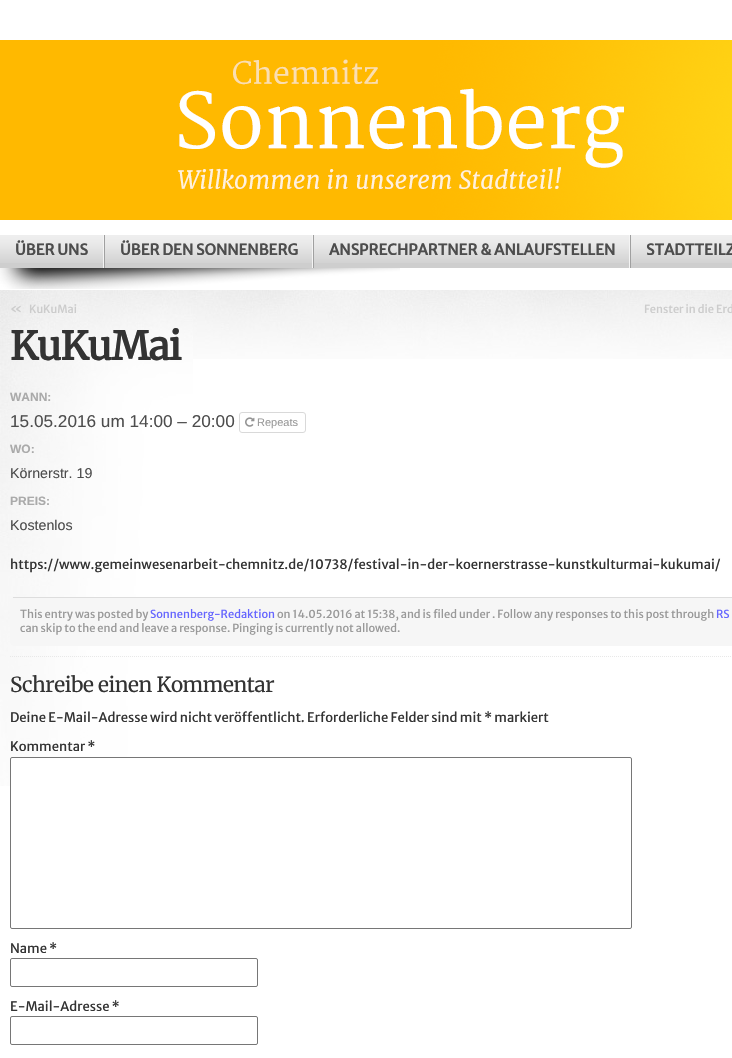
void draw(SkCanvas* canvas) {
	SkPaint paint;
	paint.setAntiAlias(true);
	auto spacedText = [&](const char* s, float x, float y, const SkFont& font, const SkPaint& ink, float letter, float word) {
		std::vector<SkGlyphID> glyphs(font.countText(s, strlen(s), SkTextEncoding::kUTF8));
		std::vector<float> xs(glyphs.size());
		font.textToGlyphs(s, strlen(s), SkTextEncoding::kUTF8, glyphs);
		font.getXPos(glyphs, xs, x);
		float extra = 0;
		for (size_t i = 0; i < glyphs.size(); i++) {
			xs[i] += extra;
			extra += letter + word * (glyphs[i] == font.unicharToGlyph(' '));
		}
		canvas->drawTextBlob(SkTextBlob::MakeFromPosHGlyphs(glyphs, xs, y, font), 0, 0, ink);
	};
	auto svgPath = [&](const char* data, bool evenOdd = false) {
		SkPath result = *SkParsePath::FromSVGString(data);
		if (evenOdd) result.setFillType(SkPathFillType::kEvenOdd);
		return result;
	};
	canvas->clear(0xffffffff);
	canvas->drawImageRect(SkImages::DeferredFromEncodedData(SkData::MakeFromFileName("img1.png")), SkRect::MakeXYWH(0, 40, 732, 180), SkSamplingOptions());
	canvas->drawImageRect(SkImages::DeferredFromEncodedData(SkData::MakeFromFileName("img2.png")), SkRect::MakeXYWH(0, 268, 400, 21), SkSamplingOptions());
	paint.setColor(0xffcecece);
	canvas->drawRect(SkRect::MakeXYWH(0, 263, 732, 5), paint);
	canvas->drawImageRect(SkImages::DeferredFromEncodedData(SkData::MakeFromFileName("img3.png")), SkRect::MakeXYWH(0, 235, 732, 28), SkSamplingOptions());
	canvas->drawImageRect(SkImages::DeferredFromEncodedData(SkData::MakeFromFileName("img4.png")), SkRect::MakeXYWH(103, 235, 2, 33), SkSamplingOptions());
	SkFont f1(fontMgr->matchFamilyStyle("Merriweather Sans", SkFontStyle::Bold()), 15);
	f1.setSubpixel(true);
	paint.setColor(0xff4d4d4d);
	canvas->drawString("ÜBER UNS", 15, 255, f1, paint);
	canvas->drawImageRect(SkImages::DeferredFromEncodedData(SkData::MakeFromFileName("img4.png")), SkRect::MakeXYWH(312, 235, 2, 33), SkSamplingOptions());
	canvas->drawString("ÜBER DEN SONNENBERG", 120, 255, f1, paint);
	canvas->drawImageRect(SkImages::DeferredFromEncodedData(SkData::MakeFromFileName("img4.png")), SkRect::MakeXYWH(629, 235, 2, 33), SkSamplingOptions());
	canvas->drawString("ANSPRECHPARTNER & ANLAUFSTELLEN", 329, 255, f1, paint);
	canvas->drawString("STADTTEILZ", 646, 255, f1, paint);
	canvas->drawImageRect(SkImages::DeferredFromEncodedData(SkData::MakeFromFileName("img5.png")), SkRect::MakeXYWH(193, 290, 539, 69), SkSamplingOptions());
	canvas->drawImageRect(SkImages::DeferredFromEncodedData(SkData::MakeFromFileName("img6.png")), SkRect::MakeXYWH(0, 290, 193, 496), SkSamplingOptions());
	SkFont f2(fontMgr->matchFamilyStyle("Merriweather Sans", SkFontStyle::Normal()), 13);
	f2.setSubpixel(true);
	paint.setColor(0xffcccccc);
	canvas->drawString("«", 10, 313, f2, paint);
	SkFont f3(fontMgr->matchFamilyStyle("Merriweather Sans", SkFontStyle::Normal()), 11.05);
	f3.setSubpixel(true);
	canvas->drawString("KuKuMai", 29, 313, f3, paint);
	canvas->drawString("Fenster in die Erd", 644, 313, f3, paint);
	paint.setStroke(true);
	paint.setStrokeWidth(1);
	paint.setColor(0xffe8e8e8);
	paint.setPathEffect(SkDashPathEffect::Make({{1, 1}}, 0));
	canvas->drawPath(svgPath("M10 656.5H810"), paint);
	paint.setPathEffect(nullptr);
	SkFont f4(fontMgr->matchFamilyStyle("Merriweather", SkFontStyle::Bold()), 39);
	f4.setSubpixel(true);
	paint.setStroke(false);
	paint.setColor(0xff333333);
	spacedText("KuKuMai", 10, 360, f4, paint, -1, 0);
	SkFont f5(fontMgr->matchFamilyStyle("Liberation Sans", SkFontStyle::Bold()), 12);
	f5.setSubpixel(true);
	paint.setColor(0xffaaaaaa);
	canvas->drawString("WANN:", 10, 401, f5, paint);
	SkFont f6(fontMgr->matchFamilyStyle("Liberation Sans", SkFontStyle::Normal()), 17.2);
	f6.setSubpixel(true);
	paint.setColor(0xff4d4d4d);
	canvas->drawString("15.05.2016 um 14:00 – 20:00", 10, 427, f6, paint);
	paint.setStroke(true);
	paint.setColor(0xffd9d9d9);
	canvas->drawRoundRect(SkRect::MakeXYWH(239.5, 412.5, 66, 20), 2.5, 2.5, paint);
	canvas->drawImageRect(SkImages::DeferredFromEncodedData(SkData::MakeFromFileName("img7.png")), SkRect::MakeXYWH(245, 417, 10, 10), SkSamplingOptions());
	SkFont f7(fontMgr->matchFamilyStyle("Liberation Sans", SkFontStyle::Normal()), 11);
	f7.setSubpixel(true);
	paint.setStroke(false);
	paint.setColor(0xff999999);
	canvas->drawString("Repeats", 257, 426, f7, paint);
	paint.setColor(0xffaaaaaa);
	canvas->drawString("WO:", 10, 453, f5, paint);
	SkFont f8(fontMgr->matchFamilyStyle("Liberation Sans", SkFontStyle::Normal()), 14.25);
	f8.setSubpixel(true);
	paint.setColor(0xff4d4d4d);
	canvas->drawString("Körnerstr. 19", 10, 478, f8, paint);
	paint.setColor(0xffaaaaaa);
	canvas->drawString("PREIS:", 10, 505, f5, paint);
	paint.setColor(0xff4d4d4d);
	canvas->drawString("Kostenlos", 10, 530, f8, paint);
	paint.setColor(0xff333333);
	canvas->drawString("https://www.gemeinwesenarbeit-chemnitz.de/10738/festival-in-der-koernerstrasse-kunstkulturmai-kukumai/", 10, 569, f2, paint);
	paint.setColor(0xfff6f6f6);
	canvas->drawRoundRect(SkRect::MakeXYWH(10, 597, 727, 49), 5, 5, paint);
	paint.setColor(0xffdddddd);
	canvas->drawRect(SkRect::MakeXYWH(13, 597, 719, 1), paint);
	paint.setColor(0xff999999);
	canvas->drawString("This entry was posted by", 20, 618, f3, paint);
	paint.setColor(0xff6666ff);
	canvas->drawString("Sonnenberg-Redaktion", 150, 618, f3, paint);
	paint.setColor(0xff999999);
	canvas->drawString("on 14.05.2016 at 15:38, and is filed under . Follow any responses to this post through", 277, 618, f3, paint);
	paint.setColor(0xff6666ff);
	canvas->drawString("RS", 716, 618, f3, paint);
	paint.setColor(0xff999999);
	canvas->drawString("can skip to the end and leave a response. Pinging is currently not allowed.", 20, 632, f3, paint);
	SkFont f9(fontMgr->matchFamilyStyle("Merriweather", SkFontStyle(300, SkFontStyle::kNormal_Width, SkFontStyle::kUpright_Slant)), 20.75);
	f9.setSubpixel(true);
	paint.setColor(0xff333333);
	spacedText("Schreibe einen Kommentar", 10, 692, f9, paint, -0.4, 0);
	canvas->drawString("Deine E-Mail-Adresse wird nicht veröffentlicht. Erforderliche Felder sind mit * markiert", 10, 722, f2, paint);
	canvas->drawString("Kommentar *", 10, 751, f2, paint);
	paint.setColor(0xffffffff);
	canvas->drawRoundRect(SkRect::MakeXYWH(10.5, 757.5, 621, 171), 1.5, 1.5, paint);
	paint.setStroke(true);
	paint.setColor(0xff767676);
	canvas->drawRoundRect(SkRect::MakeXYWH(10.5, 757.5, 621, 171), 1.5, 1.5, paint);
	paint.setStroke(false);
	paint.setColor(0xff333333);
	canvas->drawString("Name *", 10, 953, f2, paint);
	paint.setStroke(true);
	paint.setColor(0xff767676);
	canvas->drawRoundRect(SkRect::MakeXYWH(10.5, 958.5, 247, 28), 1.5, 1.5, paint);
	paint.setStroke(false);
	paint.setColor(0xff333333);
	canvas->drawString("E-Mail-Adresse *", 10, 1011, f2, paint);
	paint.setStroke(true);
	paint.setColor(0xff767676);
	canvas->drawRoundRect(SkRect::MakeXYWH(10.5, 1016.5, 247, 28), 1.5, 1.5, paint);
}
